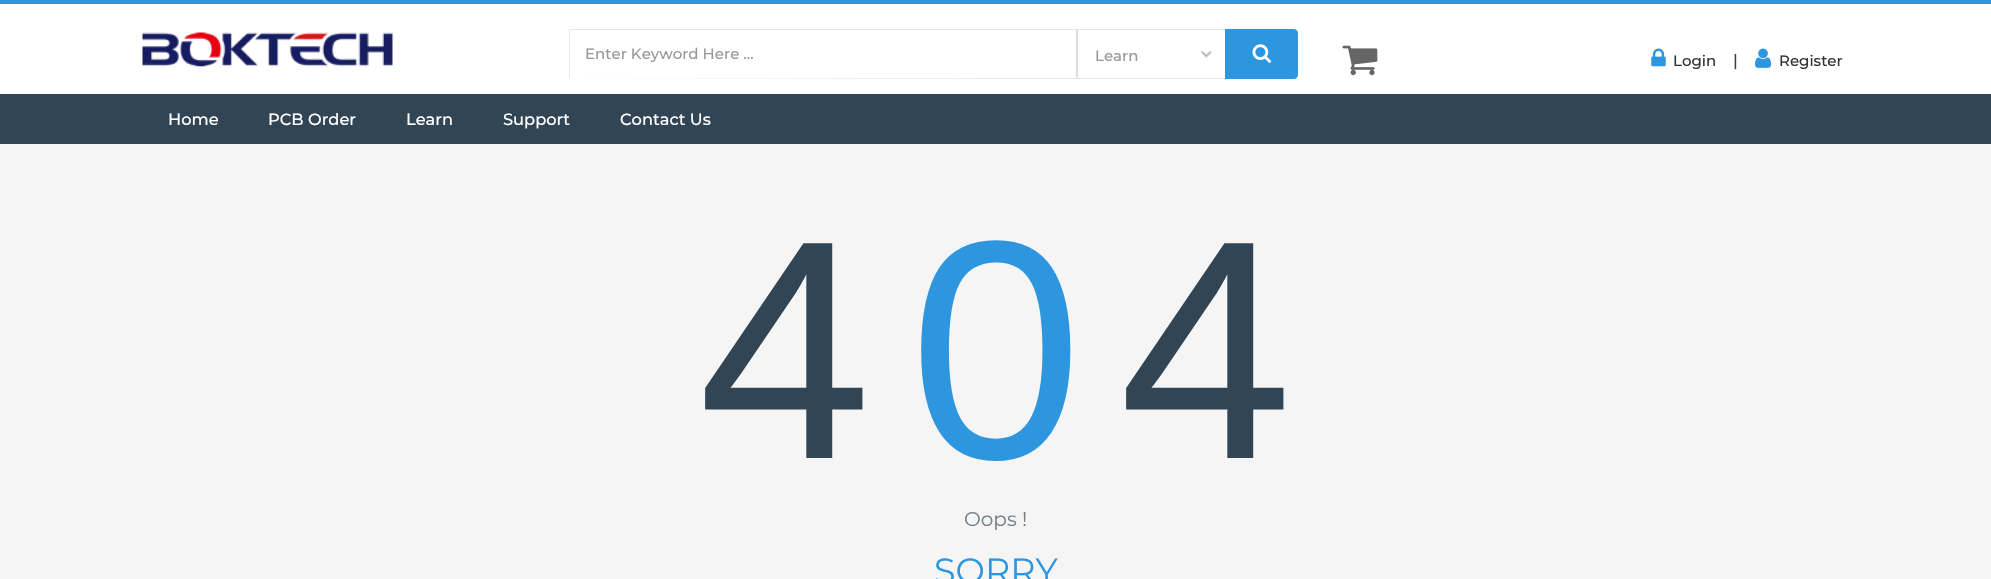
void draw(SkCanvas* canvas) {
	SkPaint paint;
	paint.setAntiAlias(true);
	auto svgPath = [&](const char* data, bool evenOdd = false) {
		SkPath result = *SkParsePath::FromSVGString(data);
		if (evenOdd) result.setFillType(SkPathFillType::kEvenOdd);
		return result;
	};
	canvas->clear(0xfff5f5f5);
	paint.setColor(0xffffffff);
	canvas->drawRect(SkRect::MakeXYWH(0, 4, 1991, 90), paint);
	paint.setColor(0xff2d96de);
	canvas->drawRect(SkRect::MakeXYWH(0, 0, 1991, 4), paint);
	canvas->drawImageRect(SkImages::DeferredFromEncodedData(SkData::MakeFromFileName("img1.png")), SkRect::MakeXYWH(142, 32, 251, 35), SkSamplingOptions());
	paint.setColor(0xffe5e6e7);
	canvas->drawPath(svgPath("M570 29H569L570 30H1076L1077 29Z"), paint);
	paint.setColor(0xffdddddd);
	canvas->drawPath(svgPath("M1078 29L1076 30V77L1078 79Z"), paint);
	paint.setColor(0xffe5e6e7);
	canvas->drawPath(svgPath("M1078 79L569 78H570H1076V77Z"), paint);
	canvas->drawPath(svgPath("M570 30L569 29V78H570Z"), paint);
	SkFont f1(fontMgr->matchFamilyStyle("Montserrat", SkFontStyle(500, SkFontStyle::kNormal_Width, SkFontStyle::kUpright_Slant)), 15);
	f1.setSubpixel(true);
	paint.setColor(0xff999999);
	canvas->drawString("Enter Keyword Here ...", 585, 59, f1, paint);
	canvas->drawImageRect(SkImages::DeferredFromEncodedData(SkData::MakeFromFileName("img2.png")), SkRect::MakeXYWH(1201, 51, 11, 7), SkSamplingOptions());
	paint.setColor(0xffe5e6e7);
	canvas->drawRect(SkRect::MakeXYWH(1078, 29, 150, 1), paint);
	canvas->drawRect(SkRect::MakeXYWH(1078, 78, 150, 1), paint);
	paint.setColor(0xff999999);
	canvas->drawString("Learn", 1095, 61, f1, paint);
	paint.setColor(0xff2d96de);
	canvas->drawPath(svgPath("M1225 29H1294C1296 29 1298 31 1298 33V75C1298 77 1296 79 1294 79H1225Z"), paint);
	canvas->drawImageRect(SkImages::DeferredFromEncodedData(SkData::MakeFromFileName("img3.png")), SkRect::MakeXYWH(1252, 44, 20, 19), SkSamplingOptions());
	canvas->drawImageRect(SkImages::DeferredFromEncodedData(SkData::MakeFromFileName("img4.png")), SkRect::MakeXYWH(1342, 45, 36, 31), SkSamplingOptions());
	canvas->drawImageRect(SkImages::DeferredFromEncodedData(SkData::MakeFromFileName("img5.png")), SkRect::MakeXYWH(1651, 48, 15, 19), SkSamplingOptions());
	paint.setColor(0xff333333);
	canvas->drawString("Login", 1673, 66, f1, paint);
	SkFont f2(fontMgr->matchFamilyStyle("Montserrat", SkFontStyle(500, SkFontStyle::kNormal_Width, SkFontStyle::kUpright_Slant)), 16.25);
	f2.setSubpixel(true);
	paint.setColor(0xff384047);
	canvas->drawString("|", 1733, 66, f2, paint);
	canvas->drawImageRect(SkImages::DeferredFromEncodedData(SkData::MakeFromFileName("img6.png")), SkRect::MakeXYWH(1755, 48, 17, 20), SkSamplingOptions());
	paint.setColor(0xff333333);
	canvas->drawString("Register", 1779, 66, f1, paint);
	paint.setColor(0xff314555);
	canvas->drawRect(SkRect::MakeXYWH(0, 94, 1991, 50), paint);
	paint.setColor(0xffffffff);
	canvas->drawString("Home", 168, 125, f2, paint);
	canvas->drawString("PCB Order", 268, 125, f2, paint);
	canvas->drawString("Learn", 406, 125, f2, paint);
	canvas->drawString("Support", 503, 125, f2, paint);
	canvas->drawString("Contact Us", 620, 125, f2, paint);
	SkFont f3(fontMgr->matchFamilyStyle("Liberation Sans", SkFontStyle::Normal()), 312);
	f3.setSubpixel(true);
	paint.setColor(0xff314555);
	canvas->drawString("4", 698, 458, f3, paint);
	paint.setColor(0xff2d96de);
	canvas->drawString("0", 909, 458, f3, paint);
	paint.setColor(0xff314555);
	canvas->drawString("4", 1119, 458, f3, paint);
	SkFont f4(fontMgr->matchFamilyStyle("Montserrat", SkFontStyle::Normal()), 20);
	f4.setSubpixel(true);
	paint.setColor(0xff717f86);
	canvas->drawString("Oops !", 964, 526, f4, paint);
	SkFont f5(fontMgr->matchFamilyStyle("Montserrat", SkFontStyle::Normal()), 35);
	f5.setSubpixel(true);
	paint.setColor(0xff2d96de);
	canvas->drawString("SORRY", 934, 583, f5, paint);
}
